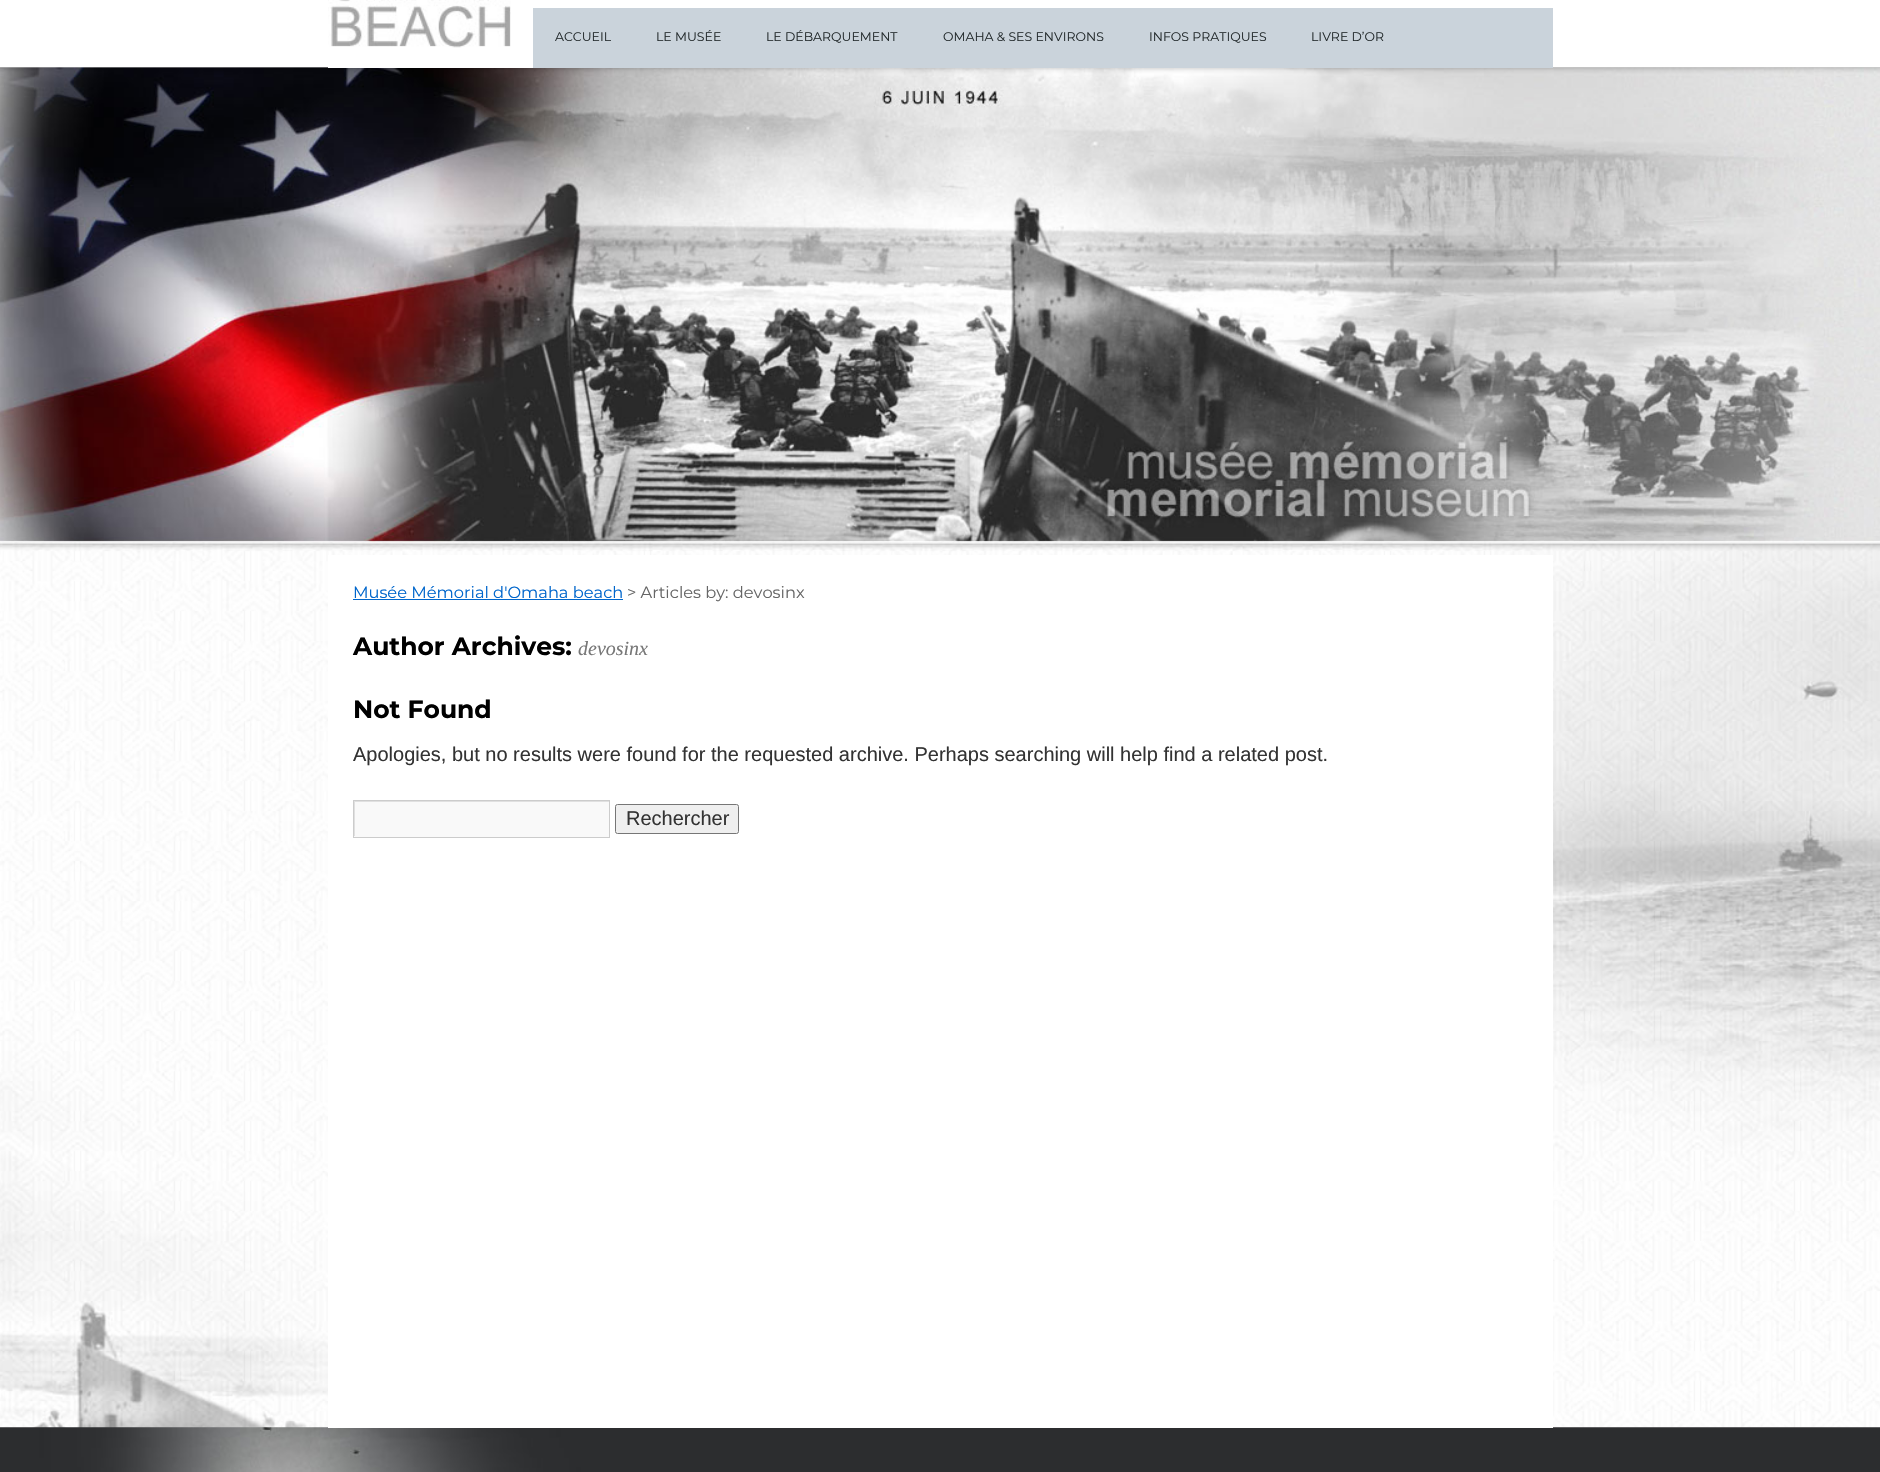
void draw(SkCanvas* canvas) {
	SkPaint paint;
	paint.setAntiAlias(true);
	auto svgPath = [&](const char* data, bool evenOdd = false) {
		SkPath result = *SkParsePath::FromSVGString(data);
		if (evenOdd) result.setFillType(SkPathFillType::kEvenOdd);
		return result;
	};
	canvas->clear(0xffffffff);
	canvas->drawImageRect(SkImages::DeferredFromEncodedData(SkData::MakeFromFileName("img1.png")), SkRect::MakeXYWH(0, 67, 1880, 1361), SkSamplingOptions());
	canvas->drawImageRect(SkImages::DeferredFromEncodedData(SkData::MakeFromFileName("img3.png")), SkRect::MakeXYWH(0, 67, 1880, 475), SkSamplingOptions());
	paint.setColor(0xffffffff);
	canvas->drawRect(SkRect::MakeXYWH(328, 67, 1225, 1), paint);
	canvas->drawImageRect(SkImages::DeferredFromEncodedData(SkData::MakeFromFileName("img2.png")), SkRect::MakeXYWH(328, 0, 183, 48), SkSamplingOptions());
	paint.setColor(0xffcad3db);
	canvas->drawRect(SkRect::MakeXYWH(533, 8, 1020, 60), paint);
	SkFont f1(fontMgr->matchFamilyStyle("Montserrat", SkFontStyle::Normal()), 12.5);
	f1.setSubpixel(true);
	paint.setColor(0xff252c2e);
	canvas->drawString("ACCUEIL", 555, 41, f1, paint);
	canvas->drawString("LE MUSÉE", 656, 41, f1, paint);
	canvas->drawString("LE DÉBARQUEMENT", 766, 41, f1, paint);
	canvas->drawString("OMAHA & SES ENVIRONS", 943, 41, f1, paint);
	canvas->drawString("INFOS PRATIQUES", 1149, 41, f1, paint);
	canvas->drawString("LIVRE D’OR", 1311, 41, f1, paint);
	canvas->drawImageRect(SkImages::DeferredFromEncodedData(SkData::MakeFromFileName("img4.png")), SkRect::MakeXYWH(0, 1427, 1880, 45), SkSamplingOptions());
	paint.setColor(0xffffffff);
	canvas->drawRect(SkRect::MakeXYWH(328, 555, 1225, 873), paint);
	SkFont f2(fontMgr->matchFamilyStyle("Montserrat", SkFontStyle::Normal()), 16.25);
	f2.setSubpixel(true);
	paint.setColor(0xff0066cc);
	canvas->drawString("Musée Mémorial d'Omaha beach", 353, 598, f2, paint);
	canvas->drawRect(SkRect::MakeXYWH(353, 599, 270, 1), paint);
	paint.setColor(0xff666666);
	canvas->drawString("> Articles by: devosinx", 627, 598, f2, paint);
	SkFont f3(fontMgr->matchFamilyStyle("Montserrat", SkFontStyle::Bold()), 25);
	f3.setSubpixel(true);
	paint.setColor(0xff000000);
	canvas->drawString("Author Archives:", 353, 655, f3, paint);
	SkFont f4(fontMgr->matchFamilyStyle("Liberation Serif", SkFontStyle::Italic()), 20);
	f4.setSubpixel(true);
	paint.setColor(0xff777777);
	canvas->drawString("devosinx", 578, 655, f4, paint);
	paint.setColor(0xff000000);
	canvas->drawString("Not Found", 353, 718, f3, paint);
	SkFont f5(fontMgr->matchFamilyStyle("Liberation Sans", SkFontStyle::Normal()), 20);
	f5.setSubpixel(true);
	paint.setColor(0xff333333);
	canvas->drawString("Apologies, but no results were found for the requested archive. Perhaps searching will help find a related post.", 353, 761, f5, paint);
	paint.setColor(0xfff9f9f9);
	canvas->drawRect(SkRect::MakeXYWH(354, 802, 255, 35), paint);
	canvas->save();
	canvas->clipRect(SkRect::MakeXYWH(354, 801, 255, 35));
	paint.setColor(0xffe0e0e0);
	canvas->drawPath(svgPath("M230 678H732V960H230ZM355 802H610V838H355Z", true), paint);
	canvas->restore();
	paint.setStroke(true);
	paint.setStrokeWidth(1);
	paint.setColor(0xffcccccc);
	canvas->drawRect(SkRect::MakeXYWH(353.5, 800.5, 256, 37), paint);
	paint.setStroke(false);
	paint.setColor(0xffefefef);
	canvas->drawRoundRect(SkRect::MakeXYWH(615.5, 804.5, 123, 29), 2, 2, paint);
	paint.setStroke(true);
	paint.setColor(0xff767676);
	canvas->drawRoundRect(SkRect::MakeXYWH(615.5, 804.5, 123, 29), 2, 2, paint);
	paint.setStroke(false);
	paint.setColor(0xff333333);
	canvas->drawString("Rechercher", 626, 825, f5, paint);
}
